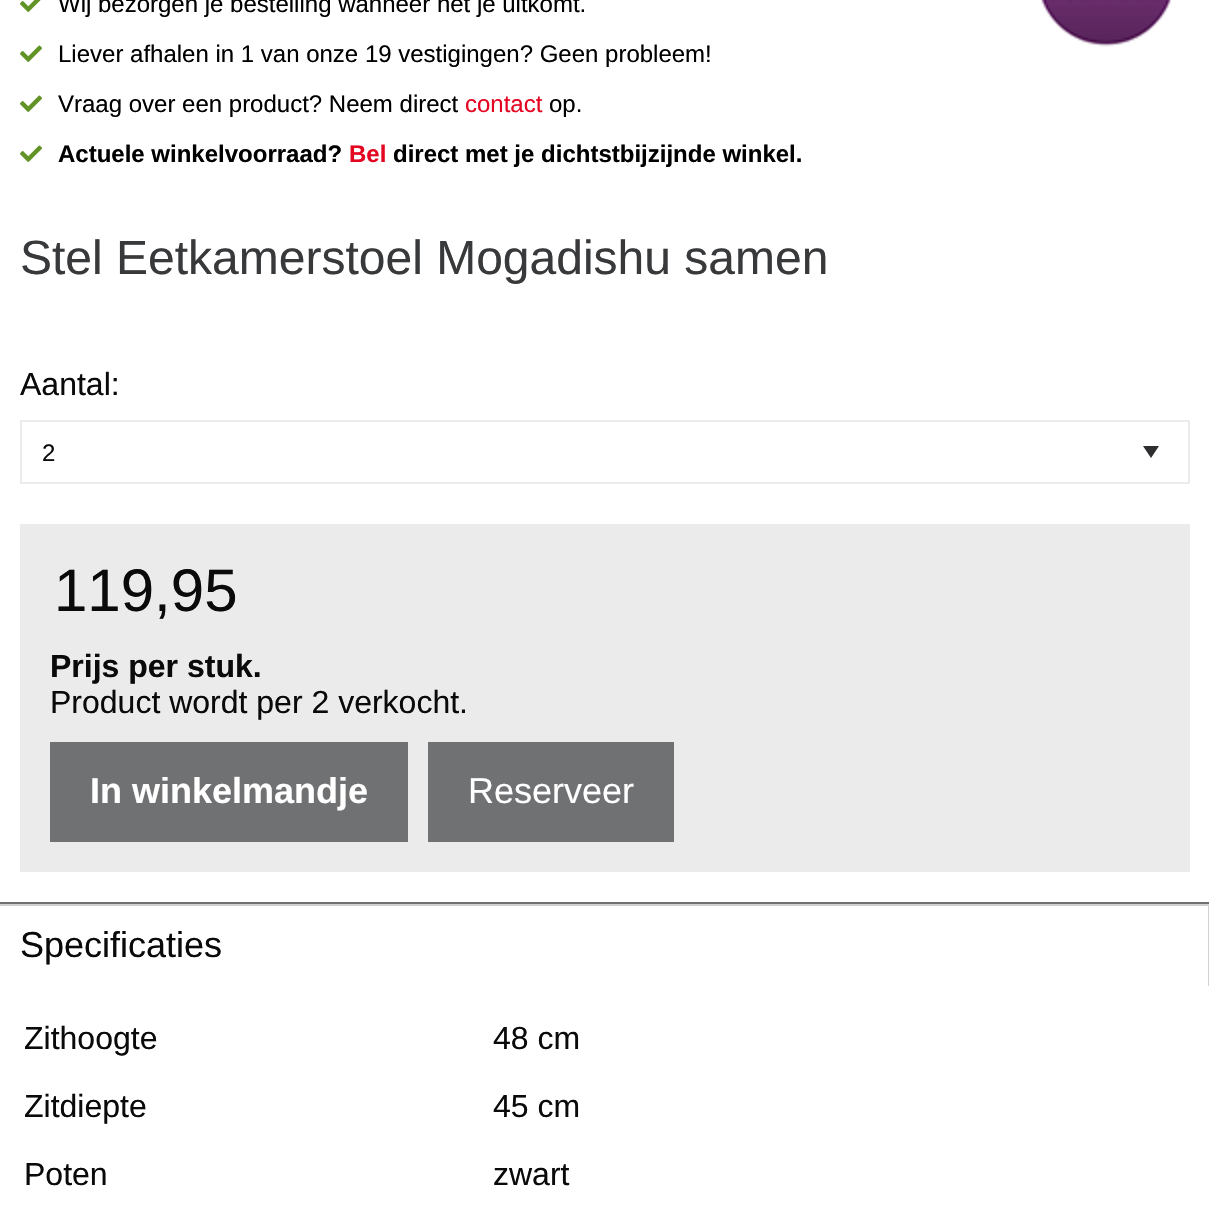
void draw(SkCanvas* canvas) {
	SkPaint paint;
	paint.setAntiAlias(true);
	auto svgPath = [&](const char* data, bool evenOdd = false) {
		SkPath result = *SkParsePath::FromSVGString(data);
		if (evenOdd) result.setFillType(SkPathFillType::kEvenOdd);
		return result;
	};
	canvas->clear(0xffffffff);
	canvas->drawImageRect(SkImages::DeferredFromEncodedData(SkData::MakeFromFileName("img1.png")), SkRect::MakeXYWH(20, 0, 21, 12), SkSamplingOptions());
	SkFont f1(fontMgr->matchFamilyStyle("Liberation Sans", SkFontStyle::Normal()), 24);
	f1.setSubpixel(true);
	paint.setColor(0xff000000);
	canvas->drawString("Wij bezorgen je bestelling wanneer het je uitkomt.", 58, 12, f1, paint);
	canvas->drawImageRect(SkImages::DeferredFromEncodedData(SkData::MakeFromFileName("img2.png")), SkRect::MakeXYWH(20, 45, 22, 17), SkSamplingOptions());
	canvas->drawString("Liever afhalen in 1 van onze 19 vestigingen? Geen probleem!", 58, 62, f1, paint);
	canvas->drawImageRect(SkImages::DeferredFromEncodedData(SkData::MakeFromFileName("img2.png")), SkRect::MakeXYWH(20, 95, 22, 17), SkSamplingOptions());
	canvas->drawString("Vraag over een product? Neem direct", 58, 112, f1, paint);
	paint.setColor(0xffe40521);
	canvas->drawString("contact", 465, 112, f1, paint);
	paint.setColor(0xff000000);
	canvas->drawString("op.", 549, 112, f1, paint);
	canvas->drawImageRect(SkImages::DeferredFromEncodedData(SkData::MakeFromFileName("img2.png")), SkRect::MakeXYWH(20, 145, 22, 17), SkSamplingOptions());
	SkFont f2(fontMgr->matchFamilyStyle("Liberation Sans", SkFontStyle::Bold()), 24);
	f2.setSubpixel(true);
	canvas->drawString("Actuele winkelvoorraad?", 58, 162, f2, paint);
	paint.setColor(0xffe40521);
	canvas->drawString("Bel", 349, 162, f2, paint);
	paint.setColor(0xff000000);
	canvas->drawString("direct met je dichtstbijzijnde winkel.", 393, 162, f2, paint);
	SkFont f3(fontMgr->matchFamilyStyle("Liberation Sans", SkFontStyle::Normal()), 48);
	f3.setSubpixel(true);
	paint.setColor(0xff38393b);
	canvas->drawString("Stel Eetkamerstoel Mogadishu samen", 20, 274, f3, paint);
	SkFont f4(fontMgr->matchFamilyStyle("Liberation Sans", SkFontStyle::Normal()), 32);
	f4.setSubpixel(true);
	paint.setColor(0xff0a0a0a);
	canvas->drawString("Aantal:", 20, 395, f4, paint);
	paint.setColor(0xff2e2d30);
	canvas->drawPath(svgPath("M1143 446H1159L1151 458Z"), paint);
	paint.setStroke(true);
	paint.setStrokeWidth(2);
	paint.setColor(0xffebeced);
	canvas->drawRect(SkRect::MakeXYWH(21, 421, 1168, 62), paint);
	paint.setStroke(false);
	paint.setColor(0xff0a0a0a);
	canvas->drawString("2", 42, 461, f1, paint);
	paint.setColor(0xffebebeb);
	canvas->drawRect(SkRect::MakeXYWH(20, 524, 1170, 348), paint);
	SkFont f5(fontMgr->matchFamilyStyle("Liberation Sans", SkFontStyle::Normal()), 60);
	f5.setSubpixel(true);
	paint.setColor(0xff0a0a0a);
	canvas->drawString("119,95", 54, 611, f5, paint);
	SkFont f6(fontMgr->matchFamilyStyle("Liberation Sans", SkFontStyle::Bold()), 32);
	f6.setSubpixel(true);
	canvas->drawString("Prijs per stuk.", 50, 677, f6, paint);
	canvas->drawString("Product wordt per 2 verkocht.", 50, 713, f4, paint);
	paint.setColor(0xff707173);
	canvas->drawRect(SkRect::MakeXYWH(50, 742, 358, 100), paint);
	SkFont f7(fontMgr->matchFamilyStyle("Liberation Sans", SkFontStyle::Bold()), 36);
	f7.setSubpixel(true);
	paint.setColor(0xffffffff);
	canvas->drawString("In winkelmandje", 90, 803, f7, paint);
	paint.setColor(0xff707173);
	canvas->drawRect(SkRect::MakeXYWH(428, 742, 246, 100), paint);
	SkFont f8(fontMgr->matchFamilyStyle("Liberation Sans", SkFontStyle::Normal()), 36);
	f8.setSubpixel(true);
	paint.setColor(0xffffffff);
	canvas->drawString("Reserveer", 468, 803, f8, paint);
	canvas->drawImageRect(SkImages::DeferredFromEncodedData(SkData::MakeFromFileName("img3.png")), SkRect::MakeXYWH(1041, 0, 130, 47), SkSamplingOptions());
	paint.setColor(0xff707173);
	canvas->drawRect(SkRect::MakeXYWH(0, 902, 1209, 2), paint);
	paint.setColor(0xffd0d1d2);
	canvas->drawRect(SkRect::MakeXYWH(0, 904, 1209, 2), paint);
	canvas->drawRect(SkRect::MakeXYWH(1208, 904, 1, 82), paint);
	paint.setColor(0xff0a0a0a);
	canvas->drawString("Specificaties", 20, 957, f8, paint);
	canvas->drawString("Zithoogte", 24, 1049, f4, paint);
	canvas->drawString("48 cm", 493, 1049, f4, paint);
	canvas->drawString("Zitdiepte", 24, 1117, f4, paint);
	canvas->drawString("45 cm", 493, 1117, f4, paint);
	canvas->drawString("Poten", 24, 1185, f4, paint);
	canvas->drawString("zwart", 493, 1185, f4, paint);
}
